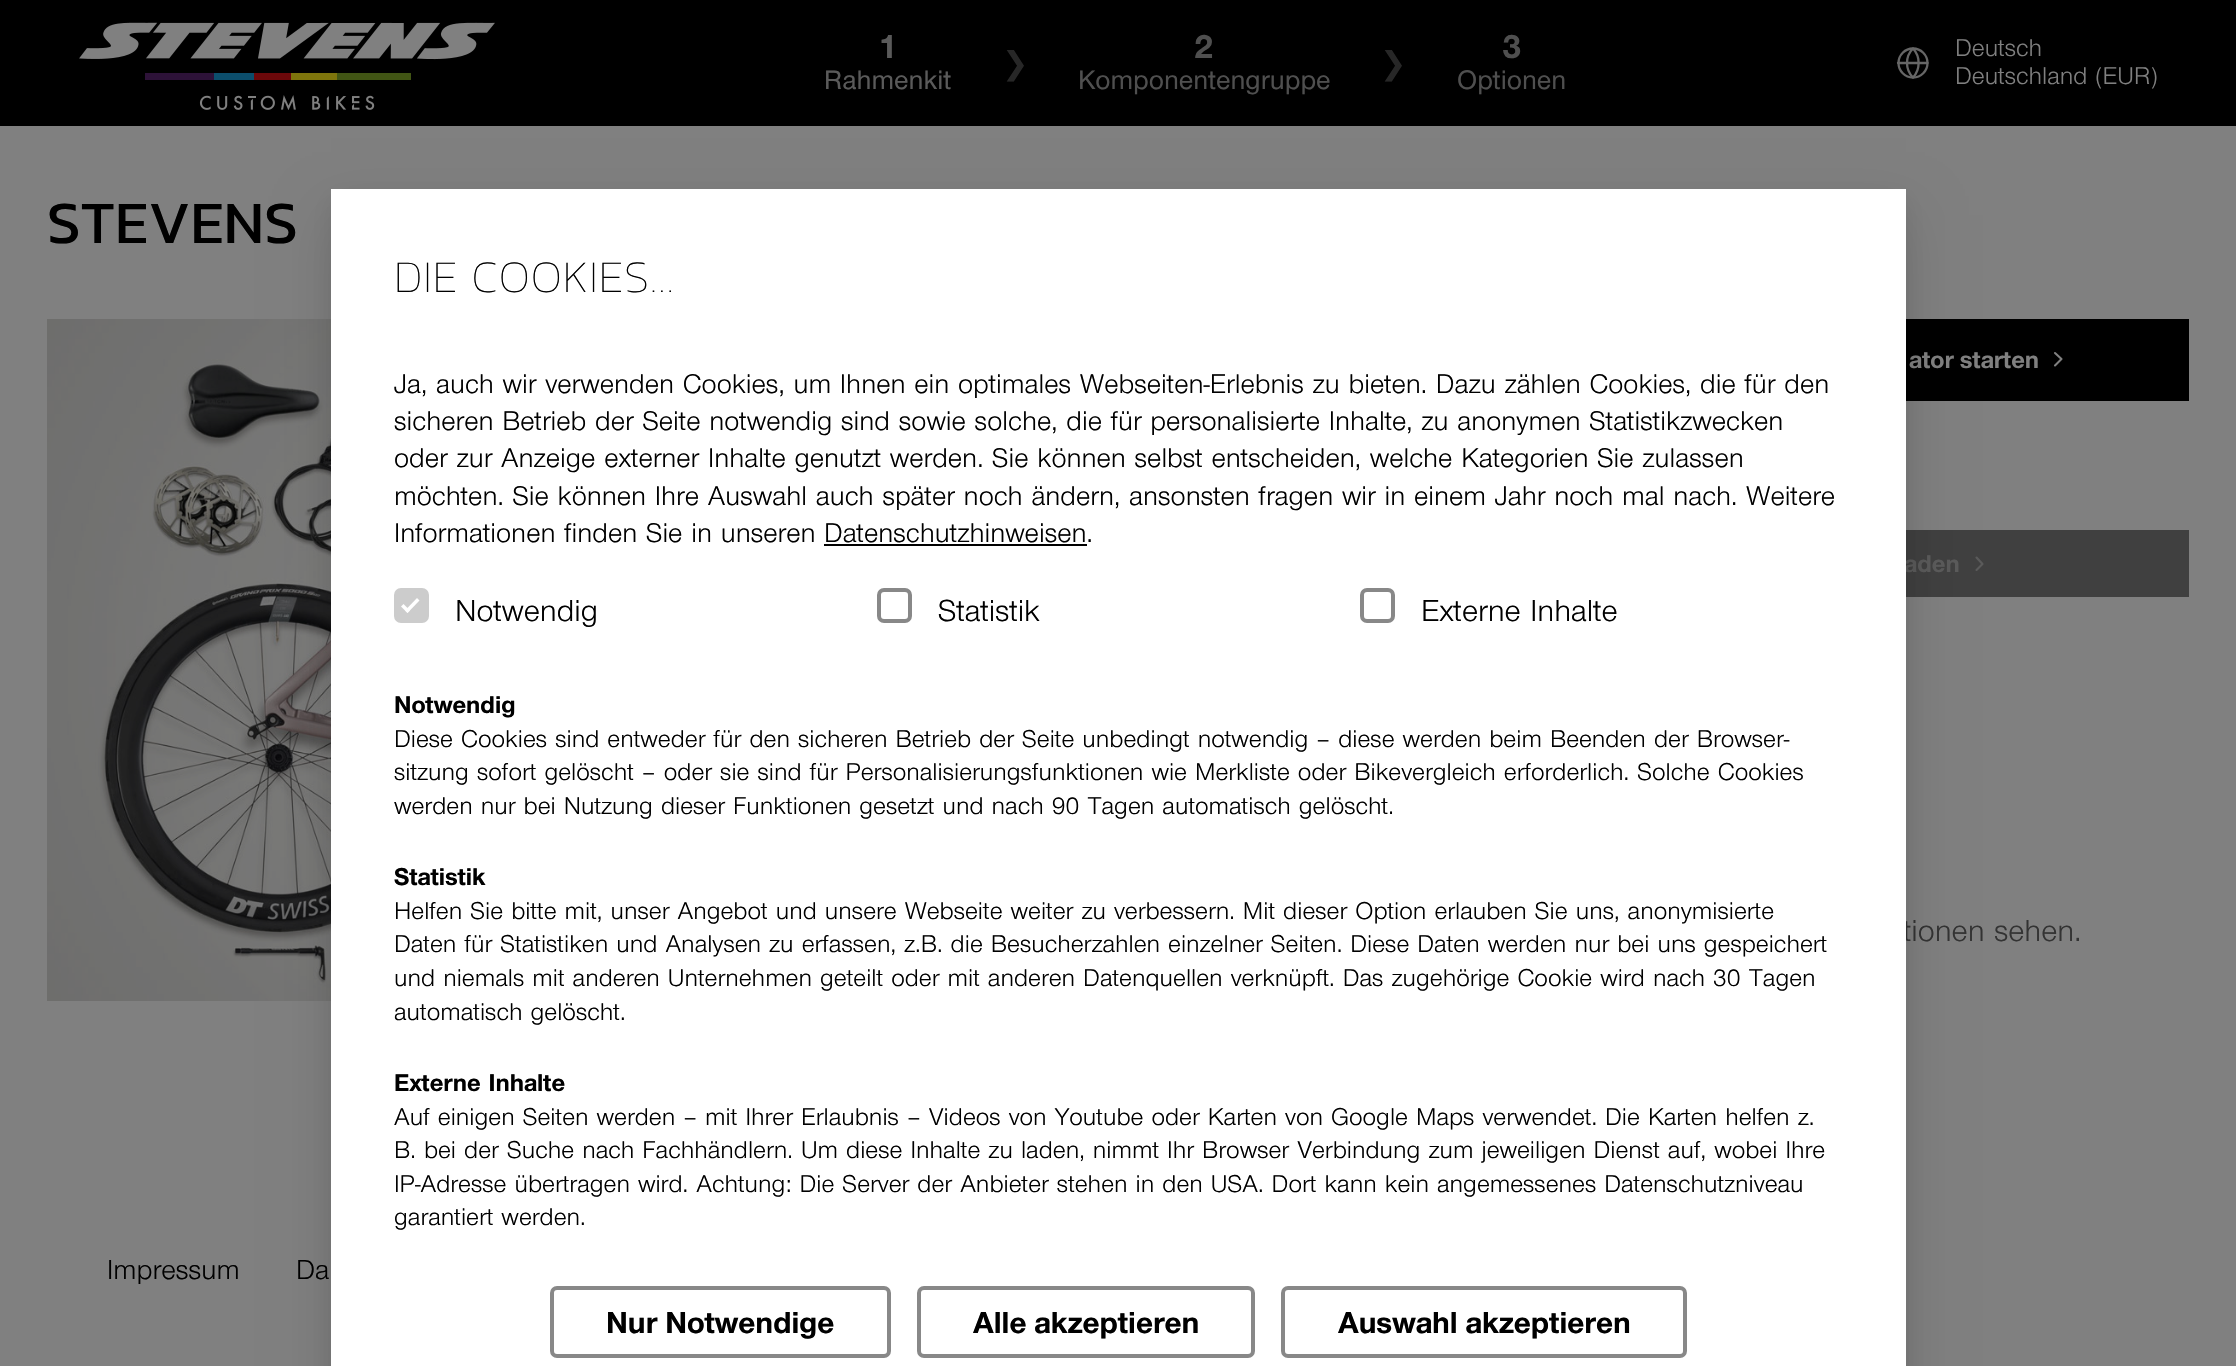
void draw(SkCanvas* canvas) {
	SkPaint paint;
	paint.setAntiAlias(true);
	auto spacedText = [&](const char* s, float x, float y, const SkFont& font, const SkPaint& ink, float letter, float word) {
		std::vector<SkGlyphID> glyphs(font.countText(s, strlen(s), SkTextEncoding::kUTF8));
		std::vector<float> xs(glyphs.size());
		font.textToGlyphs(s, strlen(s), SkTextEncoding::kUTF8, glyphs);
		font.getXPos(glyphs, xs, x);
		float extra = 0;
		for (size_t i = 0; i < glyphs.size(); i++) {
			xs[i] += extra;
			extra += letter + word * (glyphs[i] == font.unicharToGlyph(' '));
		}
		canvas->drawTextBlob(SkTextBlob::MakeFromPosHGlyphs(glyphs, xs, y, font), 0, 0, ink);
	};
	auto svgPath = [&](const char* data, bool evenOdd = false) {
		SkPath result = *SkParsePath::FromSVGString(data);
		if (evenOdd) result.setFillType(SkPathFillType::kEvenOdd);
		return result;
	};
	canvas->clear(0xff808080);
	paint.setColor(0xff000000);
	canvas->drawRect(SkRect::MakeXYWH(0, 0, 2236, 126), paint);
	canvas->drawImageRect(SkImages::DeferredFromEncodedData(SkData::MakeFromFileName("img1.png")), SkRect::MakeXYWH(79, 22, 416, 88), SkSamplingOptions());
	SkFont f1(fontMgr->matchFamilyStyle("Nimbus", SkFontStyle::Bold()), 35);
	f1.setSubpixel(true);
	paint.setColor(0xff5a5a5a);
	canvas->drawString("1", 878, 58, f1, paint);
	SkFont f2(fontMgr->matchFamilyStyle("Nimbus", SkFontStyle(500, SkFontStyle::kNormal_Width, SkFontStyle::kUpright_Slant)), 27.75);
	f2.setSubpixel(true);
	canvas->drawString("Rahmenkit", 824, 89, f2, paint);
	SkFont f3(fontMgr->matchFamilyStyle("DejaVu Sans", SkFontStyle::Normal()), 31.5);
	f3.setSubpixel(true);
	paint.setColor(0xff272727);
	canvas->drawString("❯", 1002, 74, f3, paint);
	paint.setColor(0xff4f4f4f);
	canvas->drawString("2", 1194, 58, f1, paint);
	canvas->drawString("Komponentengruppe", 1078, 89, f2, paint);
	paint.setColor(0xff272727);
	canvas->drawString("❯", 1380, 74, f3, paint);
	paint.setColor(0xff4f4f4f);
	canvas->drawString("3", 1502, 58, f1, paint);
	canvas->drawString("Optionen", 1457, 89, f2, paint);
	paint.setStroke(true);
	paint.setStrokeWidth(2.3);
	paint.setColor(0xff666666);
	canvas->drawCircle(1913, 63, 14.5, paint);
	paint.setStrokeCap(SkPaint::kRound_Cap);
	paint.setStrokeJoin(SkPaint::kRound_Join);
	canvas->drawPath(svgPath("M1898 63H1927.5M1913 48.5C1920.5 56.5 1920.5 69.5 1913 77.5C1905 69.5 1905 56.5 1913 48.5Z"), paint);
	SkFont f4(fontMgr->matchFamilyStyle("Nimbus", SkFontStyle::Normal()), 25.2);
	f4.setSubpixel(true);
	paint.setStroke(false);
	paint.setColor(0xff808080);
	canvas->drawString("Deutsch", 1955, 56, f4, paint);
	spacedText("Deutschland (EUR)", 1955, 84, f4, paint, 0, 1.75);
	SkFont f5(fontMgr->matchFamilyStyle("Kanit", SkFontStyle::Normal()), 60.5);
	f5.setSubpixel(true);
	paint.setColor(0xff000000);
	spacedText("STEVENS", 47, 243, f5, paint, 0, 1.75);
	canvas->drawImageRect(SkImages::DeferredFromEncodedData(SkData::MakeFromFileName("img2.png")), SkRect::MakeXYWH(47, 319, 284, 682), SkSamplingOptions());
	canvas->drawRect(SkRect::MakeXYWH(1906, 319, 283, 82), paint);
	SkFont f6(fontMgr->matchFamilyStyle("Nimbus", SkFontStyle::Bold()), 25.2);
	f6.setSubpixel(true);
	paint.setColor(0xff808080);
	canvas->drawString("ator starten", 1909, 368, f6, paint);
	paint.setStroke(true);
	paint.setStrokeWidth(2.1);
	canvas->drawPath(svgPath("M2055 365.5L2061.5 359L2055 353"), paint);
	paint.setStroke(false);
	paint.setColor(0xff404040);
	canvas->drawRect(SkRect::MakeXYWH(1906, 530, 283, 67), paint);
	paint.setColor(0xff5a5a5a);
	canvas->drawString("aden", 1904, 572, f6, paint);
	paint.setStroke(true);
	canvas->drawPath(svgPath("M1976.5 570L1982.5 564L1976.5 557.5"), paint);
	SkFont f7(fontMgr->matchFamilyStyle("Nimbus", SkFontStyle::Normal()), 31.5);
	f7.setSubpixel(true);
	paint.setStroke(false);
	paint.setColor(0xff333333);
	spacedText("tionen sehen.", 1903, 941, f7, paint, 0, 1.75);
	SkFont f8(fontMgr->matchFamilyStyle("Nimbus", SkFontStyle::Normal()), 28.5);
	f8.setSubpixel(true);
	paint.setColor(0xff000000);
	canvas->drawString("Impressum", 107, 1279, f8, paint);
	canvas->drawString("Da", 296, 1279, f8, paint);
	paint.setColor(0x14000000);
	paint.setMaskFilter(SkMaskFilter::MakeBlur(kNormal_SkBlurStyle, 13));
	canvas->drawRect(SkRect::MakeXYWH(331, 198, 1575, 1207), paint);
	paint.setMaskFilter(nullptr);
	paint.setColor(0x1c000000);
	paint.setMaskFilter(SkMaskFilter::MakeBlur(kNormal_SkBlurStyle, 26));
	canvas->drawRect(SkRect::MakeXYWH(331, 215, 1575, 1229), paint);
	paint.setMaskFilter(nullptr);
	paint.setColor(0xffffffff);
	canvas->drawRect(SkRect::MakeXYWH(331, 189, 1575, 1177), paint);
	SkFont f9(fontMgr->matchFamilyStyle("Kanit", SkFontStyle(200, SkFontStyle::kNormal_Width, SkFontStyle::kUpright_Slant)), 45.5);
	f9.setSubpixel(true);
	paint.setColor(0xff000000);
	spacedText("DIE COOKIES…", 394, 292, f9, paint, 0.9, 1.75);
	SkFont f10(fontMgr->matchFamilyStyle("Nimbus", SkFontStyle::Normal()), 28);
	f10.setSubpixel(true);
	spacedText("Ja, auch wir verwenden Cookies, um Ihnen ein optimales Webseiten-Erlebnis zu bieten. Dazu zählen Cookies, die für den", 394, 393, f10, paint, 0, 1.75);
	spacedText("sicheren Betrieb der Seite notwendig sind sowie solche, die für personalisierte Inhalte, zu anonymen Statistikzwecken", 394, 430, f10, paint, 0, 1.75);
	spacedText("oder zur Anzeige externer Inhalte genutzt werden. Sie können selbst entscheiden, welche Kategorien Sie zulassen", 394, 467, f10, paint, 0, 1.75);
	spacedText("möchten. Sie können Ihre Auswahl auch später noch ändern, ansonsten fragen wir in einem Jahr noch mal nach. Weitere", 394, 505, f10, paint, 0, 1.75);
	spacedText("Informationen finden Sie in unseren", 394, 542, f10, paint, 0, 1.75);
	canvas->drawString("Datenschutzhinweisen.", 824, 542, f10, paint);
	canvas->drawRect(SkRect::MakeXYWH(824, 544, 263, 2), paint);
	paint.setColor(0xffcccccc);
	canvas->drawRoundRect(SkRect::MakeXYWH(396, 590, 31, 31), 5, 5, paint);
	paint.setStroke(true);
	paint.setStrokeWidth(4);
	paint.setStrokeCap(SkPaint::kButt_Cap);
	paint.setStrokeJoin(SkPaint::kMiter_Join);
	canvas->drawRoundRect(SkRect::MakeXYWH(396, 590, 31, 31), 5, 5, paint);
	paint.setStroke(false);
	paint.setColor(0xffffffff);
	canvas->drawPath(svgPath("M417 598L419.5 600.5L407.5 613L405 610.5Z"), paint);
	canvas->drawPath(svgPath("M403.5 604L410 610.5L407.5 613L401 606.5Z"), paint);
	paint.setColor(0xff000000);
	canvas->drawString("Notwendig", 455, 621, f7, paint);
	paint.setStroke(true);
	paint.setColor(0xff888888);
	canvas->drawRoundRect(SkRect::MakeXYWH(879, 590, 31, 31), 5, 5, paint);
	paint.setStroke(false);
	paint.setColor(0xff000000);
	canvas->drawString("Statistik", 938, 621, f7, paint);
	paint.setStroke(true);
	paint.setColor(0xff888888);
	canvas->drawRoundRect(SkRect::MakeXYWH(1362, 590, 31, 31), 5, 5, paint);
	paint.setStroke(false);
	paint.setColor(0xff000000);
	spacedText("Externe Inhalte", 1421, 621, f7, paint, 0, 1.75);
	canvas->drawString("Notwendig", 394, 713, f6, paint);
	spacedText("Diese Cookies sind entweder für den sicheren Betrieb der Seite unbedingt notwendig – diese werden beim Beenden der Browser-", 394, 747, f4, paint, 0, 1.75);
	spacedText("sitzung sofort gelöscht – oder sie sind für Personalisierungsfunktionen wie Merkliste oder Bikevergleich erforderlich. Solche Cookies", 394, 780, f4, paint, 0, 1.75);
	spacedText("werden nur bei Nutzung dieser Funktionen gesetzt und nach 90 Tagen automatisch gelöscht.", 394, 814, f4, paint, 0, 1.75);
	canvas->drawString("Statistik", 394, 885, f6, paint);
	spacedText("Helfen Sie bitte mit, unser Angebot und unsere Webseite weiter zu verbessern. Mit dieser Option erlauben Sie uns, anonymisierte", 394, 919, f4, paint, 0, 1.75);
	spacedText("Daten für Statistiken und Analysen zu erfassen, z.B. die Besucherzahlen einzelner Seiten. Diese Daten werden nur bei uns gespeichert", 394, 952, f4, paint, 0, 1.75);
	spacedText("und niemals mit anderen Unternehmen geteilt oder mit anderen Datenquellen verknüpft. Das zugehörige Cookie wird nach 30 Tagen", 394, 986, f4, paint, 0, 1.75);
	spacedText("automatisch gelöscht.", 394, 1020, f4, paint, 0, 1.75);
	spacedText("Externe Inhalte", 394, 1091, f6, paint, 0, 1.75);
	spacedText("Auf einigen Seiten werden – mit Ihrer Erlaubnis – Videos von Youtube oder Karten von Google Maps verwendet. Die Karten helfen z.", 394, 1125, f4, paint, 0, 1.75);
	spacedText("B. bei der Suche nach Fachhändlern. Um diese Inhalte zu laden, nimmt Ihr Browser Verbindung zum jeweiligen Dienst auf, wobei Ihre", 394, 1158, f4, paint, 0, 1.75);
	spacedText("IP-Adresse übertragen wird. Achtung: Die Server der Anbieter stehen in den USA. Dort kann kein angemessenes Datenschutzniveau", 394, 1192, f4, paint, 0, 1.75);
	spacedText("garantiert werden.", 394, 1225, f4, paint, 0, 1.75);
	paint.setStroke(true);
	paint.setColor(0xff888888);
	canvas->drawRoundRect(SkRect::MakeXYWH(552, 1288, 337, 68), 5, 5, paint);
	SkFont f11(fontMgr->matchFamilyStyle("Nimbus", SkFontStyle::Bold()), 31.5);
	f11.setSubpixel(true);
	paint.setStroke(false);
	paint.setColor(0xff000000);
	canvas->drawString("Nur Notwendige", 606, 1333, f11, paint);
	paint.setStroke(true);
	paint.setColor(0xff888888);
	canvas->drawRoundRect(SkRect::MakeXYWH(919, 1288, 334, 68), 5, 5, paint);
	paint.setStroke(false);
	paint.setColor(0xff000000);
	canvas->drawString("Alle akzeptieren", 973, 1333, f11, paint);
	paint.setStroke(true);
	paint.setColor(0xff888888);
	canvas->drawRoundRect(SkRect::MakeXYWH(1283, 1288, 402, 68), 5, 5, paint);
	paint.setStroke(false);
	paint.setColor(0xff000000);
	canvas->drawString("Auswahl akzeptieren", 1338, 1333, f11, paint);
}
